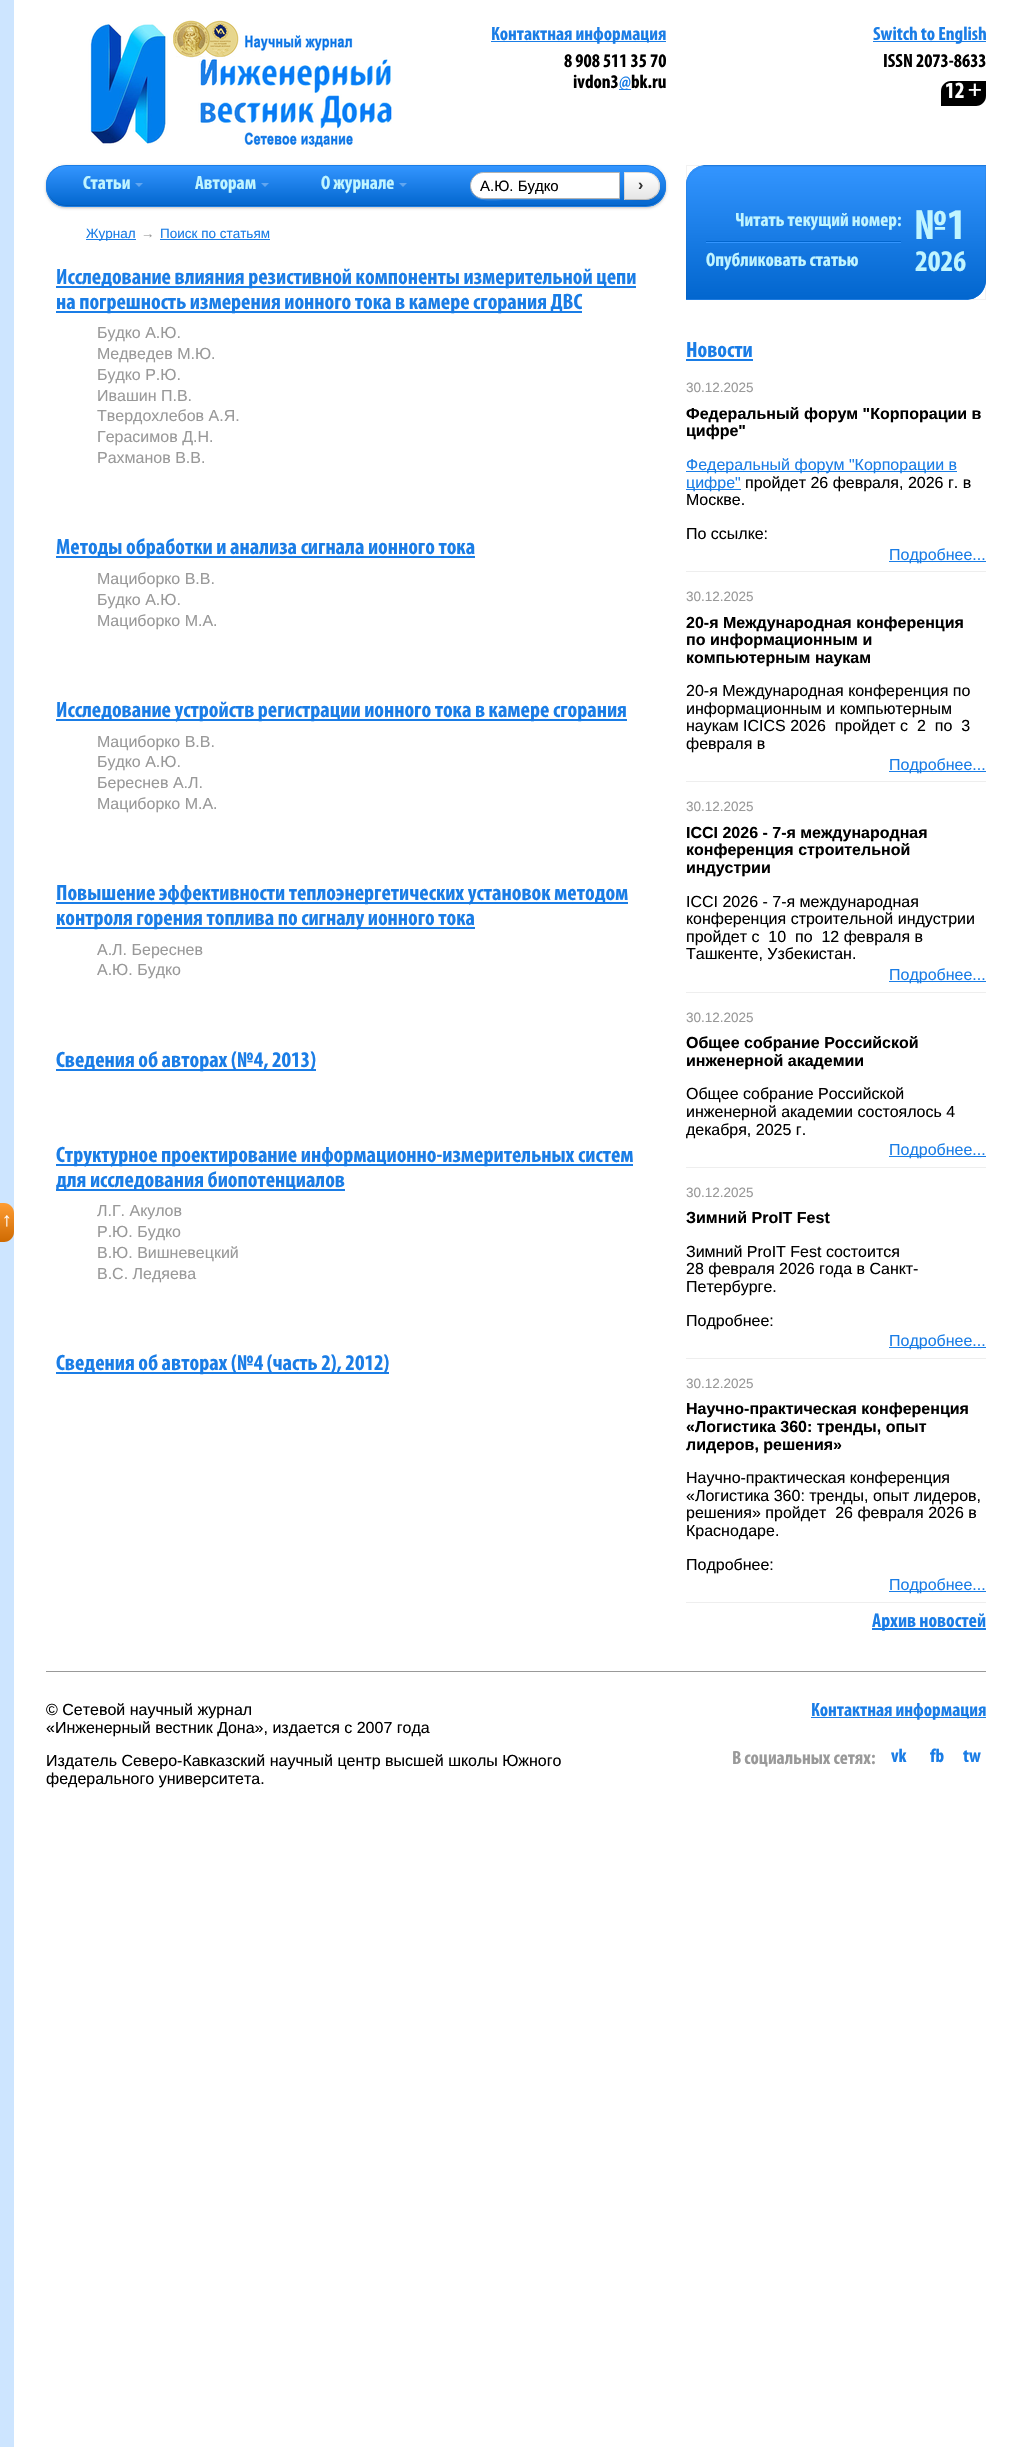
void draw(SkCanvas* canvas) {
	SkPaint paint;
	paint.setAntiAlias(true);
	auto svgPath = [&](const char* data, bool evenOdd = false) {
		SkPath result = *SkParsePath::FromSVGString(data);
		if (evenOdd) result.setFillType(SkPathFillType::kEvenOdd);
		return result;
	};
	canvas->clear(0xffffffff);
	canvas->drawImageRect(SkImages::DeferredFromEncodedData(SkData::MakeFromFileName("img1.png")), SkRect::MakeXYWH(86, 20, 306, 127), SkSamplingOptions());
	paint.setColor(0xff1a7de6);
	canvas->drawRect(SkRect::MakeXYWH(491, 41, 175, 1), paint);
	SkFont f1(fontMgr->matchFamilyStyle("Myriad", SkFontStyle::Bold()), 19.25);
	f1.setSubpixel(true);
	canvas->drawString("Контактная информация", 491, 40, f1, paint);
	paint.setColor(0xff000000);
	canvas->drawString("8 908 511 35 70", 564, 67, f1, paint);
	canvas->drawString("ivdon3", 573, 88, f1, paint);
	paint.setColor(0xff1a7de6);
	canvas->drawRect(SkRect::MakeXYWH(619, 89, 12, 1), paint);
	canvas->drawString("@", 619, 88, f1, paint);
	paint.setColor(0xff000000);
	canvas->drawString("bk.ru", 631, 88, f1, paint);
	paint.setColor(0xff1a7de6);
	canvas->drawRect(SkRect::MakeXYWH(873, 41, 113, 1), paint);
	canvas->drawString("Switch to English", 873, 40, f1, paint);
	paint.setColor(0xff000000);
	canvas->drawString("ISSN 2073-8633", 883, 67, f1, paint);
	canvas->drawPath(svgPath("M951 81H986V96C986 101.5 981.5 106 976 106H941V91C941 85.5 945.5 81 951 81Z"), paint);
	SkFont f2(fontMgr->matchFamilyStyle("Myriad", SkFontStyle::Bold()), 23);
	f2.setSubpixel(true);
	paint.setColor(0xffffffff);
	canvas->drawString("12", 945, 98, f2, paint);
	canvas->drawString("+", 968, 96, f2, paint);
	paint.setColor(0xffcde5ff);
	canvas->drawRect(SkRect::MakeXYWH(0, 0, 14, 2447), paint);
	{
		const SkColor colors[] = {0xffff9d33, 0xffce6a02};
		const float stops[] = {0, 1};
		const SkPoint ends[] = {{7, 1203}, {7, 1242}};
		paint.setShader(SkGradientShader::MakeLinear(ends, colors, stops, 2, SkTileMode::kClamp));
		paint.setAlpha(255);
	}
	canvas->drawPath(svgPath("M0 1203H4C9.5 1203 14 1207.5 14 1213V1232C14 1237.5 9.5 1242 4 1242H0Z"), paint);
	SkFont f3(fontMgr->matchFamilyStyle("Liberation Sans", SkFontStyle::Bold()), 19.25);
	f3.setSubpixel(true);
	paint.setShader(nullptr);
	paint.setColor(0xffffffff);
	canvas->drawString("↑", 2, 1226, f3, paint);
	paint.setColor(0x40000000);
	paint.setMaskFilter(SkMaskFilter::MakeBlur(kNormal_SkBlurStyle, 1.5));
	canvas->drawRoundRect(SkRect::MakeXYWH(46, 166, 620, 42), 20, 20, paint);
	paint.setMaskFilter(nullptr);
	canvas->save();
	canvas->clipPath(svgPath("M66 165H646C657 165 666 174 666 185V187C666 198 657 207 646 207H66C55 207 46 198 46 187V185C46 174 55 165 66 165Z"), true);
	{
		const SkColor colors[] = {0xff3395ff, 0xff0266ce};
		const float stops[] = {0, 1};
		const SkPoint ends[] = {{356, 166}, {356, 206}};
		paint.setShader(SkGradientShader::MakeLinear(ends, colors, stops, 2, SkTileMode::kClamp));
		paint.setAlpha(255);
	}
	canvas->drawRect(SkRect::MakeXYWH(46, 166, 620, 40), paint);
	canvas->restore();
	paint.setShader(nullptr);
	paint.setColor(0x1a000000);
	canvas->drawPath(svgPath("M47 186V187C47 197 56 206 66 206H646C656 206 665 197 665 187V186C665 196 656 205 646 205H66C56 205 47 196 47 186Z"), paint);
	paint.setStroke(true);
	paint.setStrokeWidth(1);
	paint.setColor(0xff1a7de6);
	canvas->drawRoundRect(SkRect::MakeXYWH(46.5, 165.5, 619, 41), 19.5, 19.5, paint);
	paint.setStroke(false);
	paint.setColor(0xffc0f5ff);
	canvas->drawString("Статьи", 83, 189, f1, paint);
	paint.setColor(0x4dffffff);
	canvas->drawPath(svgPath("M135 183H143L139 187Z"), paint);
	paint.setColor(0xffc0f5ff);
	canvas->drawString("Авторам", 195, 189, f1, paint);
	paint.setColor(0x4dffffff);
	canvas->drawPath(svgPath("M261 183H269L265 187Z"), paint);
	paint.setColor(0xffc0f5ff);
	canvas->drawString("О журнале", 321, 189, f1, paint);
	paint.setColor(0x4dffffff);
	canvas->drawPath(svgPath("M399 183H407L403 187Z"), paint);
	paint.setColor(0x26ffffff);
	canvas->drawPath(svgPath("M470 186C469 205 496 200 506 200H620V199H484C476 199 470 193 470 186Z"), paint);
	paint.setColor(0xffffffff);
	canvas->drawPath(svgPath("M483.5 172.5H619.5V198.5H483.5C476.5 198.5 470.5 192.5 470.5 185.5C470.5 178.5 476.5 172.5 483.5 172.5Z"), paint);
	paint.setStroke(true);
	paint.setColor(0xffb3b3b3);
	canvas->drawPath(svgPath("M483.5 172.5H619.5V198.5H483.5C476.5 198.5 470.5 192.5 470.5 185.5C470.5 178.5 476.5 172.5 483.5 172.5Z"), paint);
	SkFont f4(fontMgr->matchFamilyStyle("Liberation Sans", SkFontStyle::Normal()), 15);
	f4.setSubpixel(true);
	paint.setStroke(false);
	paint.setColor(0xff000000);
	canvas->drawString("А.Ю. Будко", 480, 191, f4, paint);
	paint.setColor(0x0d000000);
	paint.setMaskFilter(SkMaskFilter::MakeBlur(kNormal_SkBlurStyle, 1));
	canvas->drawRoundRect(SkRect::MakeXYWH(624, 173, 36, 28), 14, 14, paint);
	paint.setMaskFilter(nullptr);
	paint.setColor(0xfff5f5f5);
	canvas->drawPath(svgPath("M624 172H646C653.5 172 660 178.5 660 186C660 193.5 653.5 200 646 200H624Z"), paint);
	canvas->save();
	canvas->clipPath(svgPath("M624 172H646C653.5 172 660 178.5 660 186C660 193.5 653.5 200 646 200H624Z"), true);
	{
		const SkColor colors[] = {0xffffffff, 0xffe6e6e6};
		const float stops[] = {0, 1};
		const SkPoint ends[] = {{642, 173}, {642, 199}};
		paint.setShader(SkGradientShader::MakeLinear(ends, colors, stops, 2, SkTileMode::kClamp));
		paint.setAlpha(255);
	}
	canvas->drawRect(SkRect::MakeXYWH(624, 173, 36, 26), paint);
	canvas->restore();
	paint.setShader(nullptr);
	paint.setColor(0x1a000000);
	canvas->drawPath(svgPath("M624 172L625 173H646C649.5 173 653 174.5 655 177L656 176C653 173.5 650 172 646 172Z"), paint);
	canvas->drawPath(svgPath("M656 176C661.5 181.5 661.5 190.5 656 196L655 195C660 190 660 182 655 177Z"), paint);
	paint.setColor(0x40000000);
	canvas->drawPath(svgPath("M646 200C650 200 653 198.5 656 196L655 195C653 197.5 649.5 199 646 199H625L624 200Z"), paint);
	paint.setColor(0x1a000000);
	canvas->drawPath(svgPath("M624 172V200L625 199V173Z"), paint);
	SkFont f5(fontMgr->matchFamilyStyle("Liberation Sans", SkFontStyle::Bold()), 16);
	f5.setSubpixel(true);
	paint.setColor(0xff333333);
	canvas->drawString("›", 638, 190, f5, paint);
	paint.setColor(0xff1a7de6);
	canvas->drawRect(SkRect::MakeXYWH(86, 239, 50, 1), paint);
	SkFont f6(fontMgr->matchFamilyStyle("Liberation Sans", SkFontStyle::Normal()), 13.5);
	f6.setSubpixel(true);
	canvas->drawString("Журнал", 86, 238, f6, paint);
	paint.setColor(0xff999999);
	canvas->drawString("→", 141, 238, f6, paint);
	paint.setColor(0xff1a7de6);
	canvas->drawString("Поиск по статьям", 160, 238, f6, paint);
	canvas->drawRect(SkRect::MakeXYWH(160, 239, 110, 1), paint);
	canvas->drawRect(SkRect::MakeXYWH(56, 286, 580, 2), paint);
	SkFont f7(fontMgr->matchFamilyStyle("Myriad", SkFontStyle::Bold()), 22.4);
	f7.setSubpixel(true);
	canvas->drawString("Исследование влияния резистивной компоненты измерительной цепи", 56, 284, f7, paint);
	canvas->drawRect(SkRect::MakeXYWH(56, 311, 526, 2), paint);
	canvas->drawString("на погрешность измерения ионного тока в камере сгорания ДВС", 56, 309, f7, paint);
	SkFont f8(fontMgr->matchFamilyStyle("Liberation Sans", SkFontStyle::Normal()), 16);
	f8.setSubpixel(true);
	paint.setColor(0xff999999);
	canvas->drawString("Будко А.Ю.", 97, 338, f8, paint);
	canvas->drawString("Медведев М.Ю.", 97, 359, f8, paint);
	canvas->drawString("Будко Р.Ю.", 97, 380, f8, paint);
	canvas->drawString("Ивашин П.В.", 97, 401, f8, paint);
	canvas->drawString("Твердохлебов А.Я.", 97, 421, f8, paint);
	canvas->drawString("Герасимов Д.Н.", 97, 442, f8, paint);
	canvas->drawString("Рахманов В.В.", 97, 463, f8, paint);
	paint.setColor(0xff1a7de6);
	canvas->drawRect(SkRect::MakeXYWH(56, 556, 419, 2), paint);
	canvas->drawString("Методы обработки и анализа сигнала ионного тока", 56, 554, f7, paint);
	paint.setColor(0xff999999);
	canvas->drawString("Мациборко В.В.", 97, 584, f8, paint);
	canvas->drawString("Будко А.Ю.", 97, 605, f8, paint);
	canvas->drawString("Мациборко М.А.", 97, 626, f8, paint);
	paint.setColor(0xff1a7de6);
	canvas->drawRect(SkRect::MakeXYWH(56, 719, 571, 2), paint);
	canvas->drawString("Исследование устройств регистрации ионного тока в камере сгорания", 56, 717, f7, paint);
	paint.setColor(0xff999999);
	canvas->drawString("Мациборко В.В.", 97, 747, f8, paint);
	canvas->drawString("Будко А.Ю.", 97, 767, f8, paint);
	canvas->drawString("Береснев А.Л.", 97, 788, f8, paint);
	canvas->drawString("Мациборко М.А.", 97, 809, f8, paint);
	paint.setColor(0xff1a7de6);
	canvas->drawRect(SkRect::MakeXYWH(56, 902, 572, 2), paint);
	canvas->drawString("Повышение эффективности теплоэнергетических установок методом", 56, 900, f7, paint);
	canvas->drawRect(SkRect::MakeXYWH(56, 927, 419, 2), paint);
	canvas->drawString("контроля горения топлива по сигналу ионного тока", 56, 925, f7, paint);
	paint.setColor(0xff999999);
	canvas->drawString("А.Л. Береснев", 97, 955, f8, paint);
	canvas->drawString("А.Ю. Будко", 97, 975, f8, paint);
	paint.setColor(0xff1a7de6);
	canvas->drawRect(SkRect::MakeXYWH(56, 1069, 260, 2), paint);
	canvas->drawString("Сведения об авторах (№4, 2013)", 56, 1067, f7, paint);
	canvas->drawRect(SkRect::MakeXYWH(56, 1164, 577, 2), paint);
	canvas->drawString("Структурное проектирование информационно-измерительных систем", 56, 1162, f7, paint);
	canvas->drawRect(SkRect::MakeXYWH(56, 1189, 289, 2), paint);
	canvas->drawString("для исследования биопотенциалов", 56, 1187, f7, paint);
	paint.setColor(0xff999999);
	canvas->drawString("Л.Г. Акулов", 97, 1216, f8, paint);
	canvas->drawString("Р.Ю. Будко", 97, 1237, f8, paint);
	canvas->drawString("В.Ю. Вишневецкий", 97, 1258, f8, paint);
	canvas->drawString("В.С. Ледяева", 97, 1279, f8, paint);
	paint.setColor(0xff1a7de6);
	canvas->drawRect(SkRect::MakeXYWH(56, 1372, 333, 2), paint);
	canvas->drawString("Сведения об авторах (№4 (часть 2), 2012)", 56, 1370, f7, paint);
	paint.setColor(0xff1f82eb);
	canvas->drawPath(svgPath("M706 165H986V280C986 291 977 300 966 300H686V185C686 174 695 165 706 165Z"), paint);
	canvas->save();
	canvas->clipPath(svgPath("M706 165H986V280C986 291 977 300 966 300H686V185C686 174 695 165 706 165Z"), true);
	{
		const SkColor colors[] = {0xff3395ff, 0xff0266ce};
		const float stops[] = {0, 1};
		const SkPoint ends[] = {{836, 166}, {836, 299}};
		paint.setShader(SkGradientShader::MakeLinear(ends, colors, stops, 2, SkTileMode::kClamp));
		paint.setAlpha(255);
	}
	canvas->drawRect(SkRect::MakeXYWH(686, 166, 300, 133), paint);
	canvas->restore();
	paint.setShader(nullptr);
	paint.setColor(0x0d000000);
	canvas->drawPath(svgPath("M706 167H985V166H706C696 166 687 175 687 185V186C687 176 696 167 706 167Z"), paint);
	paint.setStroke(true);
	canvas->drawRect(SkRect::MakeXYWH(686.5, 165.5, 299, 134), paint);
	paint.setStroke(false);
	paint.setColor(0xffc0f5ff);
	canvas->drawString("Читать текущий номер:", 735, 226, f1, paint);
	SkFont f9(fontMgr->matchFamilyStyle("Myriad", SkFontStyle::Bold()), 44);
	f9.setSubpixel(true);
	canvas->drawString("№1", 914, 239, f9, paint);
	SkFont f10(fontMgr->matchFamilyStyle("Myriad", SkFontStyle::Bold()), 30);
	f10.setSubpixel(true);
	canvas->drawString("2026", 915, 271, f10, paint);
	paint.setColor(0xff0266ce);
	canvas->drawRect(SkRect::MakeXYWH(706, 241, 195, 1), paint);
	paint.setColor(0xff3395ff);
	canvas->drawRect(SkRect::MakeXYWH(706, 242, 195, 1), paint);
	paint.setColor(0xffc0f5ff);
	canvas->drawString("Опубликовать статью", 706, 266, f1, paint);
	paint.setColor(0xff1a7de6);
	canvas->drawString("Новости", 686, 357, f7, paint);
	canvas->drawRect(SkRect::MakeXYWH(686, 359, 67, 2), paint);
	paint.setColor(0xff999999);
	canvas->drawString("30.12.2025", 686, 392, f6, paint);
	paint.setColor(0xffeeeeee);
	canvas->drawRect(SkRect::MakeXYWH(686, 571, 300, 1), paint);
	paint.setColor(0xff000000);
	canvas->drawString("Федеральный форум \"Корпорации в", 686, 419, f5, paint);
	canvas->drawString("цифре\"", 686, 436, f5, paint);
	paint.setColor(0xff1a7de6);
	canvas->drawRect(SkRect::MakeXYWH(686, 471, 271, 1), paint);
	canvas->drawString("Федеральный форум \"Корпорации в", 686, 470, f8, paint);
	canvas->drawRect(SkRect::MakeXYWH(686, 489, 55, 1), paint);
	canvas->drawString("цифре\"", 686, 488, f8, paint);
	paint.setColor(0xff000000);
	canvas->drawString("пройдет 26 февраля, 2026 г. в", 745, 488, f8, paint);
	canvas->drawString("Москве.", 686, 505, f8, paint);
	canvas->drawString("По ссылке:", 686, 539, f8, paint);
	paint.setColor(0xff1a7de6);
	canvas->drawRect(SkRect::MakeXYWH(889, 561, 97, 1), paint);
	canvas->drawString("Подробнее...", 889, 560, f8, paint);
	paint.setColor(0xff999999);
	canvas->drawString("30.12.2025", 686, 601, f6, paint);
	paint.setColor(0xffeeeeee);
	canvas->drawRect(SkRect::MakeXYWH(686, 781, 300, 1), paint);
	paint.setColor(0xff000000);
	canvas->drawString("20-я Международная конференция", 686, 628, f5, paint);
	canvas->drawString("по информационным и", 686, 645, f5, paint);
	canvas->drawString("компьютерным наукам", 686, 663, f5, paint);
	canvas->drawString("20-я Международная конференция по", 686, 696, f8, paint);
	canvas->drawString("информационным и компьютерным", 686, 714, f8, paint);
	canvas->drawString("наукам ICICS 2026  пройдет с  2  по  3", 686, 731, f8, paint);
	canvas->drawString("февраля в", 686, 749, f8, paint);
	paint.setColor(0xff1a7de6);
	canvas->drawRect(SkRect::MakeXYWH(889, 771, 97, 1), paint);
	canvas->drawString("Подробнее...", 889, 770, f8, paint);
	paint.setColor(0xff999999);
	canvas->drawString("30.12.2025", 686, 811, f6, paint);
	paint.setColor(0xffeeeeee);
	canvas->drawRect(SkRect::MakeXYWH(686, 992, 300, 1), paint);
	paint.setColor(0xff000000);
	canvas->drawString("ICCI 2026 - 7-я международная", 686, 838, f5, paint);
	canvas->drawString("конференция строительной", 686, 855, f5, paint);
	canvas->drawString("индустрии", 686, 873, f5, paint);
	canvas->drawString("ICCI 2026 - 7-я международная", 686, 907, f8, paint);
	canvas->drawString("конференция строительной индустрии", 686, 924, f8, paint);
	canvas->drawString("пройдет с  10  по  12 февраля в", 686, 942, f8, paint);
	canvas->drawString("Ташкенте, Узбекистан.", 686, 959, f8, paint);
	paint.setColor(0xff1a7de6);
	canvas->drawRect(SkRect::MakeXYWH(889, 981, 97, 1), paint);
	canvas->drawString("Подробнее...", 889, 980, f8, paint);
	paint.setColor(0xff999999);
	canvas->drawString("30.12.2025", 686, 1022, f6, paint);
	paint.setColor(0xffeeeeee);
	canvas->drawRect(SkRect::MakeXYWH(686, 1167, 300, 1), paint);
	paint.setColor(0xff000000);
	canvas->drawString("Общее собрание Российской", 686, 1048, f5, paint);
	canvas->drawString("инженерной академии", 686, 1066, f5, paint);
	canvas->drawString("Общее собрание Российской", 686, 1099, f8, paint);
	canvas->drawString("инженерной академии состоялось 4", 686, 1117, f8, paint);
	canvas->drawString("декабря, 2025 г.", 686, 1135, f8, paint);
	paint.setColor(0xff1a7de6);
	canvas->drawRect(SkRect::MakeXYWH(889, 1156, 97, 1), paint);
	canvas->drawString("Подробнее...", 889, 1155, f8, paint);
	paint.setColor(0xff999999);
	canvas->drawString("30.12.2025", 686, 1197, f6, paint);
	paint.setColor(0xffeeeeee);
	canvas->drawRect(SkRect::MakeXYWH(686, 1358, 300, 1), paint);
	paint.setColor(0xff000000);
	canvas->drawString("Зимний ProIT Fest", 686, 1223, f5, paint);
	canvas->drawString("Зимний ProIT Fest состоится", 686, 1257, f8, paint);
	canvas->drawString("28 февраля 2026 года в Санкт-", 686, 1274, f8, paint);
	canvas->drawString("Петербурге.", 686, 1292, f8, paint);
	canvas->drawString("Подробнее:", 686, 1326, f8, paint);
	paint.setColor(0xff1a7de6);
	canvas->drawRect(SkRect::MakeXYWH(889, 1347, 97, 1), paint);
	canvas->drawString("Подробнее...", 889, 1346, f8, paint);
	paint.setColor(0xff999999);
	canvas->drawString("30.12.2025", 686, 1388, f6, paint);
	paint.setColor(0xffeeeeee);
	canvas->drawRect(SkRect::MakeXYWH(686, 1602, 300, 1), paint);
	paint.setColor(0xff000000);
	canvas->drawString("Научно-практическая конференция", 686, 1414, f5, paint);
	canvas->drawString("«Логистика 360: тренды, опыт", 686, 1432, f5, paint);
	canvas->drawString("лидеров, решения»", 686, 1450, f5, paint);
	canvas->drawString("Научно-практическая конференция", 686, 1483, f8, paint);
	canvas->drawString("«Логистика 360: тренды, опыт лидеров,", 686, 1501, f8, paint);
	canvas->drawString("решения» пройдет  26 февраля 2026 в", 686, 1518, f8, paint);
	canvas->drawString("Краснодаре.", 686, 1536, f8, paint);
	canvas->drawString("Подробнее:", 686, 1570, f8, paint);
	paint.setColor(0xff1a7de6);
	canvas->drawRect(SkRect::MakeXYWH(889, 1591, 97, 1), paint);
	canvas->drawString("Подробнее...", 889, 1590, f8, paint);
	canvas->drawRect(SkRect::MakeXYWH(872, 1628, 114, 2), paint);
	SkFont f11(fontMgr->matchFamilyStyle("Myriad", SkFontStyle::Bold()), 20);
	f11.setSubpixel(true);
	canvas->drawString("Архив новостей", 872, 1627, f11, paint);
	paint.setColor(0xff999999);
	canvas->drawRect(SkRect::MakeXYWH(46, 1671, 940, 1), paint);
	paint.setColor(0xff000000);
	canvas->drawString("© Сетевой научный журнал", 46, 1715, f8, paint);
	canvas->drawString("«Инженерный вестник Дона», издается с 2007 года", 46, 1733, f8, paint);
	canvas->drawString("Издатель Северо-Кавказский научный центр высшей школы Южного", 46, 1766, f8, paint);
	canvas->drawString("федерального университета.", 46, 1784, f8, paint);
	paint.setColor(0xff1a7de6);
	canvas->drawRect(SkRect::MakeXYWH(811, 1717, 175, 1), paint);
	canvas->drawString("Контактная информация", 811, 1716, f1, paint);
	paint.setColor(0xff999999);
	canvas->drawString("В социальных сетях:", 732, 1764, f1, paint);
	paint.setColor(0xff1a7de6);
	canvas->drawString("vk", 891, 1762, f1, paint);
	canvas->drawString("fb", 930, 1762, f1, paint);
	canvas->drawString("tw", 963, 1762, f1, paint);
}
